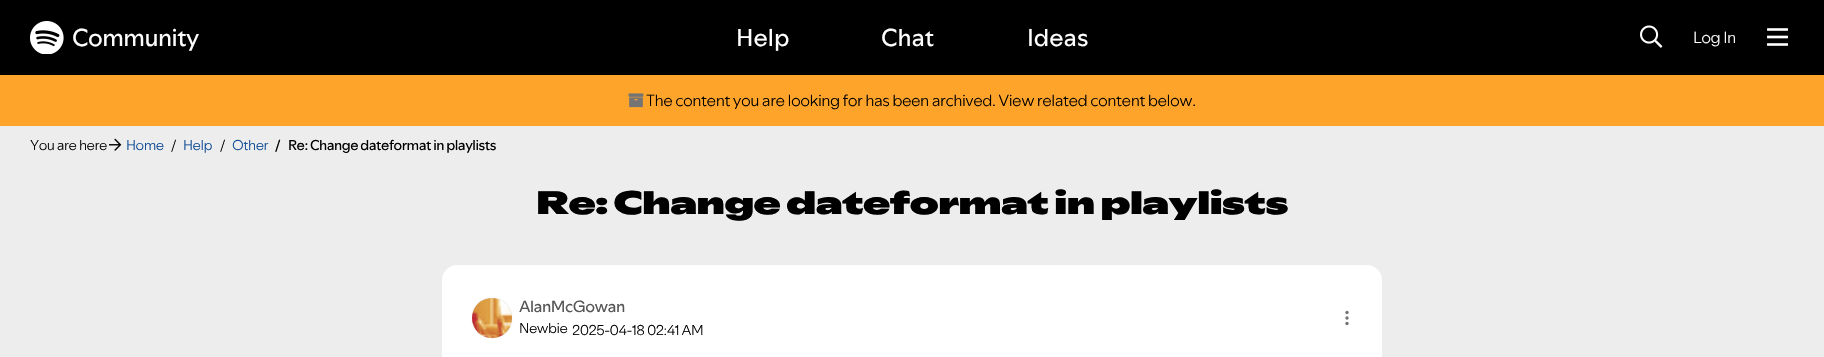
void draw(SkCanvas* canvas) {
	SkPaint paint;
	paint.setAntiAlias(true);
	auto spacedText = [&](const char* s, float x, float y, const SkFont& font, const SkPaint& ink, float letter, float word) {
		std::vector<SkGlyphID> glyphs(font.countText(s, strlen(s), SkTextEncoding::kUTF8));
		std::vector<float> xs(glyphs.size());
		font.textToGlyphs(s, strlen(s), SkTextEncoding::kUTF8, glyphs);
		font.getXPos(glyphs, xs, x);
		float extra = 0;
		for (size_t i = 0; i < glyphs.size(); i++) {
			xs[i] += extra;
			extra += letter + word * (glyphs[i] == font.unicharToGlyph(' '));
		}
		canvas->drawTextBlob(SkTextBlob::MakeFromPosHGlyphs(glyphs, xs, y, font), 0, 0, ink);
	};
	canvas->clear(0xffededed);
	paint.setColor(0xff000000);
	canvas->drawRect(SkRect::MakeXYWH(0, 0, 1824, 75), paint);
	canvas->drawImageRect(SkImages::DeferredFromEncodedData(SkData::MakeFromFileName("img1.png")), SkRect::MakeXYWH(30, 21, 34, 33), SkSamplingOptions());
	SkFont f1(fontMgr->matchFamilyStyle("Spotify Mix", SkFontStyle::Normal()), 24);
	f1.setSubpixel(true);
	paint.setColor(0xffffffff);
	spacedText("Community", 72, 46, f1, paint, -0.5, 0);
	canvas->drawString("Help", 736, 46, f1, paint);
	canvas->drawString("Chat", 881, 46, f1, paint);
	canvas->drawString("Ideas", 1027, 46, f1, paint);
	canvas->drawImageRect(SkImages::DeferredFromEncodedData(SkData::MakeFromFileName("img2.png")), SkRect::MakeXYWH(1640, 25, 23, 23), SkSamplingOptions());
	SkFont f2(fontMgr->matchFamilyStyle("Spotify Mix", SkFontStyle(300, SkFontStyle::kNormal_Width, SkFontStyle::kUpright_Slant)), 16);
	f2.setSubpixel(true);
	spacedText("Log In", 1693, 43, f2, paint, -0.5, 0);
	canvas->drawImageRect(SkImages::DeferredFromEncodedData(SkData::MakeFromFileName("img3.png")), SkRect::MakeXYWH(1767, 28, 21, 18), SkSamplingOptions());
	paint.setColor(0xffffa42b);
	canvas->drawRect(SkRect::MakeXYWH(0, 75, 1824, 51), paint);
	canvas->drawImageRect(SkImages::DeferredFromEncodedData(SkData::MakeFromFileName("img4.png")), SkRect::MakeXYWH(628, 93, 16, 15), SkSamplingOptions());
	paint.setColor(0xff000000);
	spacedText("The content you are looking for has been archived. View related content below.", 646, 106, f2, paint, -0.5, 0);
	SkFont f3(fontMgr->matchFamilyStyle("Spotify Mix", SkFontStyle(300, SkFontStyle::kNormal_Width, SkFontStyle::kUpright_Slant)), 14);
	f3.setSubpixel(true);
	spacedText("You are here", 30, 150, f3, paint, -0.5, 0);
	canvas->drawImageRect(SkImages::DeferredFromEncodedData(SkData::MakeFromFileName("img5.png")), SkRect::MakeXYWH(109, 138, 13, 13), SkSamplingOptions());
	paint.setColor(0xff084791);
	spacedText("Home", 126, 150, f3, paint, -0.5, 0);
	paint.setColor(0xff000000);
	spacedText("/", 171, 150, f3, paint, -0.5, 0);
	paint.setColor(0xff084791);
	spacedText("Help", 183, 150, f3, paint, -0.5, 0);
	paint.setColor(0xff000000);
	spacedText("/", 220, 150, f3, paint, -0.5, 0);
	paint.setColor(0xff084791);
	spacedText("Other", 232, 150, f3, paint, -0.5, 0);
	SkFont f4(fontMgr->matchFamilyStyle("Spotify Mix", SkFontStyle::Normal()), 14);
	f4.setSubpixel(true);
	paint.setColor(0xff000000);
	spacedText("/", 275, 150, f4, paint, -0.5, 0);
	spacedText("Re: Change dateformat in playlists", 288, 150, f4, paint, -0.5, 0);
	SkFont f5(fontMgr->matchFamilyStyle("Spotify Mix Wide", SkFontStyle(900, SkFontStyle::kNormal_Width, SkFontStyle::kUpright_Slant)), 32);
	f5.setSubpixel(true);
	spacedText("Re: Change dateformat in playlists", 536, 214, f5, paint, -0.5, 0);
	paint.setColor(0xffffffff);
	canvas->drawRoundRect(SkRect::MakeXYWH(442, 265, 940, 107), 15, 15, paint);
	paint.setColor(0xffc4c4c4);
	paint.setMaskFilter(SkMaskFilter::MakeBlur(kNormal_SkBlurStyle, 0.5));
	canvas->drawRoundRect(SkRect::MakeXYWH(472, 298, 40, 40), 20, 20, paint);
	paint.setMaskFilter(nullptr);
	canvas->drawImageRect(SkImages::DeferredFromEncodedData(SkData::MakeFromFileName("img6.png")), SkRect::MakeXYWH(472, 298, 40, 40), SkSamplingOptions());
	SkFont f6(fontMgr->matchFamilyStyle("Spotify Mix", SkFontStyle::Normal()), 16);
	f6.setSubpixel(true);
	paint.setColor(0xff555555);
	spacedText("AlanMcGowan", 519, 312, f6, paint, -0.5, 0);
	paint.setColor(0xff000000);
	spacedText("Newbie", 519, 333, f3, paint, -0.5, 0);
	spacedText("2025-04-18 02:41 AM", 572, 335, f3, paint, -0.5, 0);
	paint.setColor(0xff747474);
	canvas->drawCircle(1347, 312.5, 1.7, paint);
	canvas->drawCircle(1347, 318, 1.7, paint);
	canvas->drawCircle(1347, 323.5, 1.7, paint);
}
